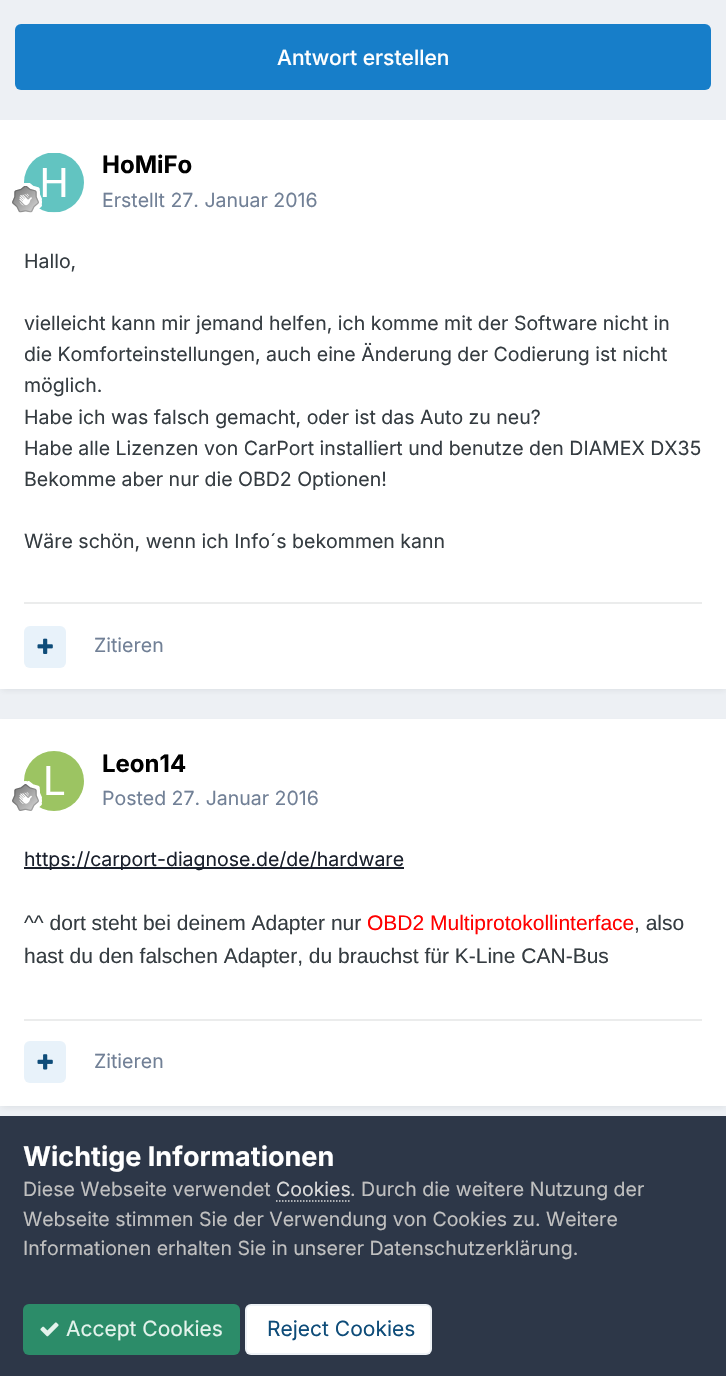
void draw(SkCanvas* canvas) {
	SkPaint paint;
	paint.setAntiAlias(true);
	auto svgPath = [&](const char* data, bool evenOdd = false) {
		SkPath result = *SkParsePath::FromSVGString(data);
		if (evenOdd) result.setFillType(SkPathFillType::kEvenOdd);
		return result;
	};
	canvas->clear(0xffedf0f4);
	paint.setColor(0xff177ec9);
	canvas->drawRoundRect(SkRect::MakeXYWH(15, 24, 696, 66), 6, 6, paint);
	SkFont f1(fontMgr->matchFamilyStyle("Inter", SkFontStyle(500, SkFontStyle::kNormal_Width, SkFontStyle::kUpright_Slant)), 21);
	f1.setSubpixel(true);
	paint.setColor(0xffffffff);
	canvas->drawString("Antwort erstellen", 277, 65, f1, paint);
	paint.setColor(0x1a2d3748);
	paint.setMaskFilter(SkMaskFilter::MakeBlur(kNormal_SkBlurStyle, 3));
	canvas->drawRect(SkRect::MakeXYWH(2, 125, 723, 565), paint);
	paint.setMaskFilter(nullptr);
	paint.setColor(0xffffffff);
	canvas->drawRect(SkRect::MakeXYWH(0, 120, 726, 569), paint);
	canvas->drawImageRect(SkImages::DeferredFromEncodedData(SkData::MakeFromFileName("img1.png")), SkRect::MakeXYWH(24, 153, 60, 60), SkSamplingOptions());
	canvas->drawImageRect(SkImages::DeferredFromEncodedData(SkData::MakeFromFileName("img2.png")), SkRect::MakeXYWH(12, 183, 30, 30), SkSamplingOptions());
	SkFont f2(fontMgr->matchFamilyStyle("Inter", SkFontStyle::Bold()), 24);
	f2.setSubpixel(true);
	paint.setColor(0xff000000);
	canvas->drawString("HoMiFo", 102, 173, f2, paint);
	SkFont f3(fontMgr->matchFamilyStyle("Inter", SkFontStyle::Normal()), 19.5);
	f3.setSubpixel(true);
	paint.setColor(0xff718096);
	canvas->drawString("Erstellt 27. Januar 2016", 102, 207, f3, paint);
	paint.setColor(0xff353c41);
	canvas->drawString("Hallo,", 24, 268, f3, paint);
	canvas->drawString("vielleicht kann mir jemand helfen, ich komme mit der Software nicht in", 24, 330, f3, paint);
	canvas->drawString("die Komforteinstellungen, auch eine Änderung der Codierung ist nicht", 24, 361, f3, paint);
	canvas->drawString("möglich.", 24, 392, f3, paint);
	canvas->drawString("Habe ich was falsch gemacht, oder ist das Auto zu neu?", 24, 424, f3, paint);
	canvas->drawString("Habe alle Lizenzen von CarPort installiert und benutze den DIAMEX DX35", 24, 455, f3, paint);
	canvas->drawString("Bekomme aber nur die OBD2 Optionen!", 24, 486, f3, paint);
	canvas->drawString("Wäre schön, wenn ich Info´s bekommen kann", 24, 548, f3, paint);
	paint.setColor(0xffebecec);
	canvas->drawRect(SkRect::MakeXYWH(24, 602, 678, 2), paint);
	paint.setColor(0xffe8f2fa);
	canvas->drawRoundRect(SkRect::MakeXYWH(24, 626, 42, 42), 6, 6, paint);
	canvas->drawImageRect(SkImages::DeferredFromEncodedData(SkData::MakeFromFileName("img3.png")), SkRect::MakeXYWH(37, 638, 16, 16), SkSamplingOptions());
	paint.setColor(0xff718096);
	canvas->drawString("Zitieren", 94, 652, f3, paint);
	paint.setColor(0x1a2d3748);
	paint.setMaskFilter(SkMaskFilter::MakeBlur(kNormal_SkBlurStyle, 3));
	canvas->drawRect(SkRect::MakeXYWH(2, 723, 723, 384), paint);
	paint.setMaskFilter(nullptr);
	paint.setColor(0xffffffff);
	canvas->drawRect(SkRect::MakeXYWH(0, 719, 726, 387), paint);
	canvas->drawImageRect(SkImages::DeferredFromEncodedData(SkData::MakeFromFileName("img4.png")), SkRect::MakeXYWH(24, 751, 60, 60), SkSamplingOptions());
	canvas->drawImageRect(SkImages::DeferredFromEncodedData(SkData::MakeFromFileName("img5.png")), SkRect::MakeXYWH(12, 781, 30, 30), SkSamplingOptions());
	paint.setColor(0xff000000);
	canvas->drawString("Leon14", 102, 772, f2, paint);
	paint.setColor(0xff718096);
	canvas->drawString("Posted 27. Januar 2016", 102, 805, f3, paint);
	paint.setColor(0xff1a202c);
	canvas->drawRect(SkRect::MakeXYWH(24, 867, 380, 2), paint);
	canvas->drawString("https://carport-diagnose.de/de/hardware", 24, 866, f3, paint);
	SkFont f4(fontMgr->matchFamilyStyle("Liberation Sans", SkFontStyle::Normal()), 21);
	f4.setSubpixel(true);
	paint.setColor(0xff353c41);
	canvas->drawString("^^ dort steht bei deinem Adapter nur", 24, 930, f4, paint);
	paint.setColor(0xffff0000);
	canvas->drawString("OBD2 Multiprotokollinterface", 367, 930, f4, paint);
	paint.setColor(0xff353c41);
	canvas->drawString(", also", 634, 930, f4, paint);
	canvas->drawString("hast du den falschen Adapter, du brauchst für K-Line CAN-Bus", 24, 963, f4, paint);
	paint.setColor(0xffebecec);
	canvas->drawRect(SkRect::MakeXYWH(24, 1019, 678, 2), paint);
	paint.setColor(0xffe8f2fa);
	canvas->drawRoundRect(SkRect::MakeXYWH(24, 1041, 42, 42), 6, 6, paint);
	canvas->drawImageRect(SkImages::DeferredFromEncodedData(SkData::MakeFromFileName("img6.png")), SkRect::MakeXYWH(37, 1054, 16, 16), SkSamplingOptions());
	paint.setColor(0xff718096);
	canvas->drawString("Zitieren", 94, 1068, f3, paint);
	paint.setColor(0xff2d3748);
	canvas->drawRect(SkRect::MakeXYWH(0, 1116, 726, 260), paint);
	SkFont f5(fontMgr->matchFamilyStyle("Inter", SkFontStyle::Bold()), 27);
	f5.setSubpixel(true);
	paint.setColor(0xffffffff);
	canvas->drawString("Wichtige Informationen", 23, 1166, f5, paint);
	paint.setColor(0xffc0c0c0);
	canvas->drawString("Diese Webseite verwendet", 23, 1196, f3, paint);
	paint.setColor(0xffdadada);
	canvas->drawString("Cookies", 276, 1196, f3, paint);
	paint.setStroke(true);
	paint.setStrokeWidth(1.5);
	paint.setPathEffect(SkDashPathEffect::Make({{1.5f, 1.5f}}, 0));
	canvas->drawPath(svgPath("M276 1201H351"), paint);
	paint.setPathEffect(nullptr);
	paint.setStroke(false);
	paint.setColor(0xffc0c0c0);
	canvas->drawString(". Durch die weitere Nutzung der", 350, 1196, f3, paint);
	canvas->drawString("Webseite stimmen Sie der Verwendung von Cookies zu. Weitere", 23, 1226, f3, paint);
	canvas->drawString("Informationen erhalten Sie in unserer Datenschutzerklärung.", 23, 1255, f3, paint);
	paint.setColor(0xff2c8c69);
	canvas->drawRoundRect(SkRect::MakeXYWH(23, 1304, 217, 51), 6, 6, paint);
	canvas->drawImageRect(SkImages::DeferredFromEncodedData(SkData::MakeFromFileName("img7.png")), SkRect::MakeXYWH(40, 1322, 19, 15), SkSamplingOptions());
	SkFont f6(fontMgr->matchFamilyStyle("Inter", SkFontStyle::Normal()), 21);
	f6.setSubpixel(true);
	paint.setColor(0xffe3f3ec);
	canvas->drawString("Accept Cookies", 66, 1336, f6, paint);
	paint.setColor(0xffffffff);
	canvas->drawRoundRect(SkRect::MakeXYWH(245, 1304, 187, 51), 6, 6, paint);
	paint.setStroke(true);
	paint.setStrokeWidth(2);
	paint.setColor(0x120e4c79);
	canvas->drawRoundRect(SkRect::MakeXYWH(246, 1305, 185, 49), 5, 5, paint);
	paint.setStroke(false);
	paint.setColor(0xff0e4c79);
	canvas->drawString("Reject Cookies", 267, 1336, f6, paint);
}
